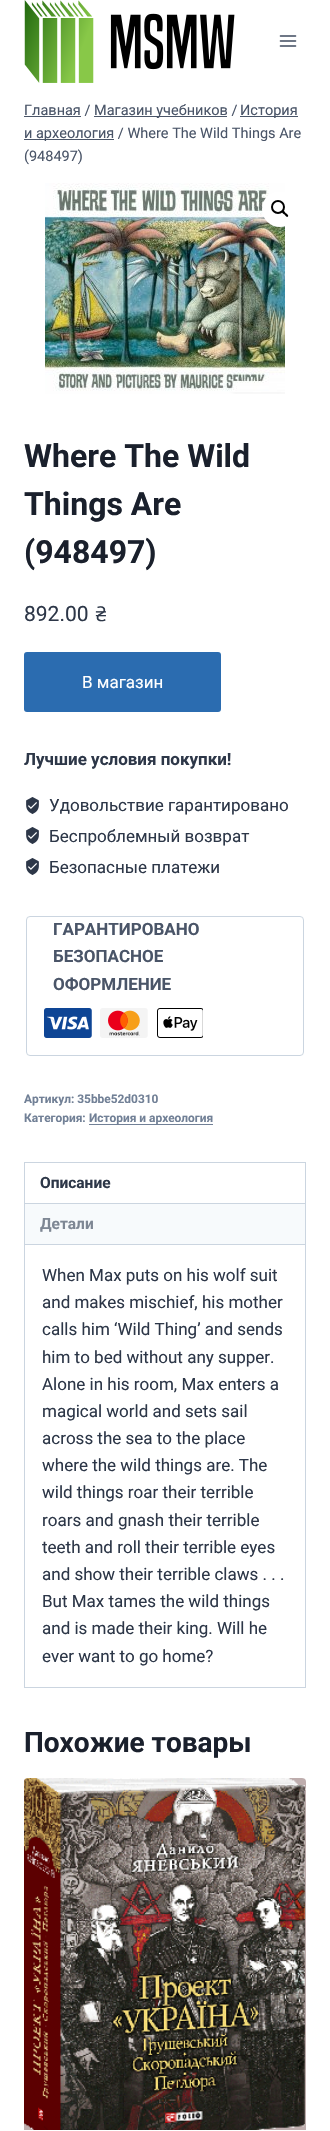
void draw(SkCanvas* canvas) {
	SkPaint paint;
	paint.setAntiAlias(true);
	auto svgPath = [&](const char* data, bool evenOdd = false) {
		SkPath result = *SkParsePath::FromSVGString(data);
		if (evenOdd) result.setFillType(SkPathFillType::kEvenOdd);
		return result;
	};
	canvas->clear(0xffffffff);
	canvas->drawImageRect(SkImages::DeferredFromEncodedData(SkData::MakeFromFileName("img1.png")), SkRect::MakeXYWH(24, 0, 211, 83), SkSamplingOptions());
	canvas->drawImageRect(SkImages::DeferredFromEncodedData(SkData::MakeFromFileName("img2.png")), SkRect::MakeXYWH(279, 35, 18, 12), SkSamplingOptions());
	SkFont f1(fontMgr->matchFamilyStyle("Roboto", SkFontStyle::Normal()), 14.5);
	f1.setSubpixel(true);
	paint.setColor(0xff4a5568);
	canvas->drawString("Главная /", 24, 115, f1, paint);
	canvas->drawRect(SkRect::MakeXYWH(24, 116, 57, 1), paint);
	canvas->drawRect(SkRect::MakeXYWH(94, 116, 133, 1), paint);
	canvas->drawString("Магазин учебников /", 94, 115, f1, paint);
	canvas->drawRect(SkRect::MakeXYWH(240, 116, 58, 1), paint);
	canvas->drawString("История", 240, 115, f1, paint);
	canvas->drawRect(SkRect::MakeXYWH(24, 139, 90, 1), paint);
	canvas->drawString("и археология / Where The Wild Things Are", 24, 138, f1, paint);
	canvas->drawString("(948497)", 24, 161, f1, paint);
	canvas->drawImageRect(SkImages::DeferredFromEncodedData(SkData::MakeFromFileName("img3.png")), SkRect::MakeXYWH(45, 183, 240, 211), SkSamplingOptions());
	paint.setColor(0xffffffff);
	canvas->drawCircle(280, 209, 18, paint);
	paint.setStroke(true);
	paint.setStrokeWidth(2);
	paint.setColor(0xff000000);
	canvas->drawCircle(278, 207, 6, paint);
	paint.setStroke(false);
	canvas->drawPath(svgPath("M282 211C283.5 209.5 285 212.5 285.5 213C286.5 213.5 289 215.5 288 216.5C286.5 218 285 215 284.5 214.5C283.5 214 281 212 282 211Z"), paint);
	SkFont f2(fontMgr->matchFamilyStyle("Roboto", SkFontStyle::Bold()), 32);
	f2.setSubpixel(true);
	paint.setColor(0xff1a202c);
	canvas->drawString("Where The Wild", 24, 467, f2, paint);
	canvas->drawString("Things Are", 24, 515, f2, paint);
	canvas->drawString("(948497)", 24, 563, f2, paint);
	SkFont f3(fontMgr->matchFamilyStyle("Roboto", SkFontStyle::Normal()), 21);
	f3.setSubpixel(true);
	paint.setColor(0xff2d3748);
	canvas->drawString("892.00", 24, 621, f3, paint);
	SkFont f4(fontMgr->matchFamilyStyle("Ubuntu", SkFontStyle::Normal()), 21);
	f4.setSubpixel(true);
	canvas->drawString("₴", 95, 621, f4, paint);
	paint.setColor(0xff2b6cb0);
	canvas->drawRoundRect(SkRect::MakeXYWH(24, 652, 197, 60), 3, 3, paint);
	SkFont f5(fontMgr->matchFamilyStyle("Roboto", SkFontStyle::Normal()), 17);
	f5.setSubpixel(true);
	paint.setColor(0xffffffff);
	canvas->drawString("В магазин", 82, 688, f5, paint);
	SkFont f6(fontMgr->matchFamilyStyle("Roboto", SkFontStyle::Bold()), 17);
	f6.setSubpixel(true);
	paint.setColor(0xff2d3748);
	canvas->drawString("Лучшие условия покупки!", 24, 765, f6, paint);
	canvas->drawImageRect(SkImages::DeferredFromEncodedData(SkData::MakeFromFileName("img4.png")), SkRect::MakeXYWH(26, 797, 13, 17), SkSamplingOptions());
	canvas->drawString("Удовольствие гарантировано", 49, 811, f5, paint);
	canvas->drawImageRect(SkImages::DeferredFromEncodedData(SkData::MakeFromFileName("img4.png")), SkRect::MakeXYWH(26, 827, 13, 17), SkSamplingOptions());
	canvas->drawString("Беспроблемный возврат", 49, 842, f5, paint);
	canvas->drawImageRect(SkImages::DeferredFromEncodedData(SkData::MakeFromFileName("img4.png")), SkRect::MakeXYWH(26, 858, 13, 17), SkSamplingOptions());
	canvas->drawString("Безопасные платежи", 49, 873, f5, paint);
	paint.setStroke(true);
	paint.setStrokeWidth(1);
	paint.setColor(0xffcbd5e0);
	canvas->drawRoundRect(SkRect::MakeXYWH(26.5, 916.5, 277, 139), 3.5, 3.5, paint);
	paint.setStroke(false);
	paint.setColor(0xff4a5568);
	canvas->drawString("ГАРАНТИРОВАНО", 53, 935, f6, paint);
	canvas->drawString("БЕЗОПАСНОЕ", 53, 962, f6, paint);
	canvas->drawString("ОФОРМЛЕНИЕ", 53, 990, f6, paint);
	canvas->drawImageRect(SkImages::DeferredFromEncodedData(SkData::MakeFromFileName("img5.png")), SkRect::MakeXYWH(44, 1008, 48, 30), SkSamplingOptions());
	canvas->drawImageRect(SkImages::DeferredFromEncodedData(SkData::MakeFromFileName("img6.png")), SkRect::MakeXYWH(100, 1008, 48, 30), SkSamplingOptions());
	canvas->drawImageRect(SkImages::DeferredFromEncodedData(SkData::MakeFromFileName("img7.png")), SkRect::MakeXYWH(157, 1008, 46, 30), SkSamplingOptions());
	SkFont f7(fontMgr->matchFamilyStyle("Roboto", SkFontStyle::Bold()), 11.9);
	f7.setSubpixel(true);
	paint.setColor(0xff718096);
	canvas->drawString("Артикул: 35bbe52d0310", 24, 1103, f7, paint);
	canvas->drawString("Категория:", 24, 1122, f7, paint);
	canvas->drawRect(SkRect::MakeXYWH(89, 1124, 124, 1), paint);
	canvas->drawString("История и археология", 89, 1122, f7, paint);
	paint.setStroke(true);
	paint.setColor(0xffcbd5e0);
	canvas->drawRect(SkRect::MakeXYWH(24.5, 1162.5, 281, 525), paint);
	paint.setStroke(false);
	canvas->drawRect(SkRect::MakeXYWH(25, 1203, 280, 1), paint);
	SkFont f8(fontMgr->matchFamilyStyle("Roboto", SkFontStyle::Bold()), 15.5);
	f8.setSubpixel(true);
	paint.setColor(0xff2d3748);
	canvas->drawString("Описание", 40, 1188, f8, paint);
	paint.setColor(0xfff7fafc);
	canvas->drawRect(SkRect::MakeXYWH(25, 1204, 280, 40), paint);
	paint.setColor(0xffcbd5e0);
	canvas->drawRect(SkRect::MakeXYWH(25, 1244, 280, 1), paint);
	paint.setColor(0xff7e8794);
	canvas->drawString("Детали", 40, 1229, f8, paint);
	paint.setColor(0xff2d3748);
	canvas->drawString("When Max puts on his wolf suit", 42, 1281, f5, paint);
	canvas->drawString("and makes mischief, his mother", 42, 1308, f5, paint);
	canvas->drawString("calls him ‘Wild Thing’ and sends", 42, 1335, f5, paint);
	canvas->drawString("him to bed without any supper.", 42, 1363, f5, paint);
	canvas->drawString("Alone in his room, Max enters a", 42, 1390, f5, paint);
	canvas->drawString("magical world and sets sail", 42, 1417, f5, paint);
	canvas->drawString("across the sea to the place", 42, 1444, f5, paint);
	canvas->drawString("where the wild things are. The", 42, 1471, f5, paint);
	canvas->drawString("wild things roar their terrible", 42, 1498, f5, paint);
	canvas->drawString("roars and gnash their terrible", 42, 1526, f5, paint);
	canvas->drawString("teeth and roll their terrible eyes", 42, 1553, f5, paint);
	canvas->drawString("and show their terrible claws . . .", 42, 1580, f5, paint);
	canvas->drawString("But Max tames the wild things", 42, 1607, f5, paint);
	canvas->drawString("and is made their king. Will he", 42, 1634, f5, paint);
	canvas->drawString("ever want to go home?", 42, 1662, f5, paint);
	SkFont f9(fontMgr->matchFamilyStyle("Roboto", SkFontStyle::Bold()), 28);
	f9.setSubpixel(true);
	paint.setColor(0xff1a202c);
	canvas->drawString("Похожие товары", 24, 1752, f9, paint);
	canvas->drawImageRect(SkImages::DeferredFromEncodedData(SkData::MakeFromFileName("img8.png")), SkRect::MakeXYWH(24, 1778, 282, 352), SkSamplingOptions());
}
